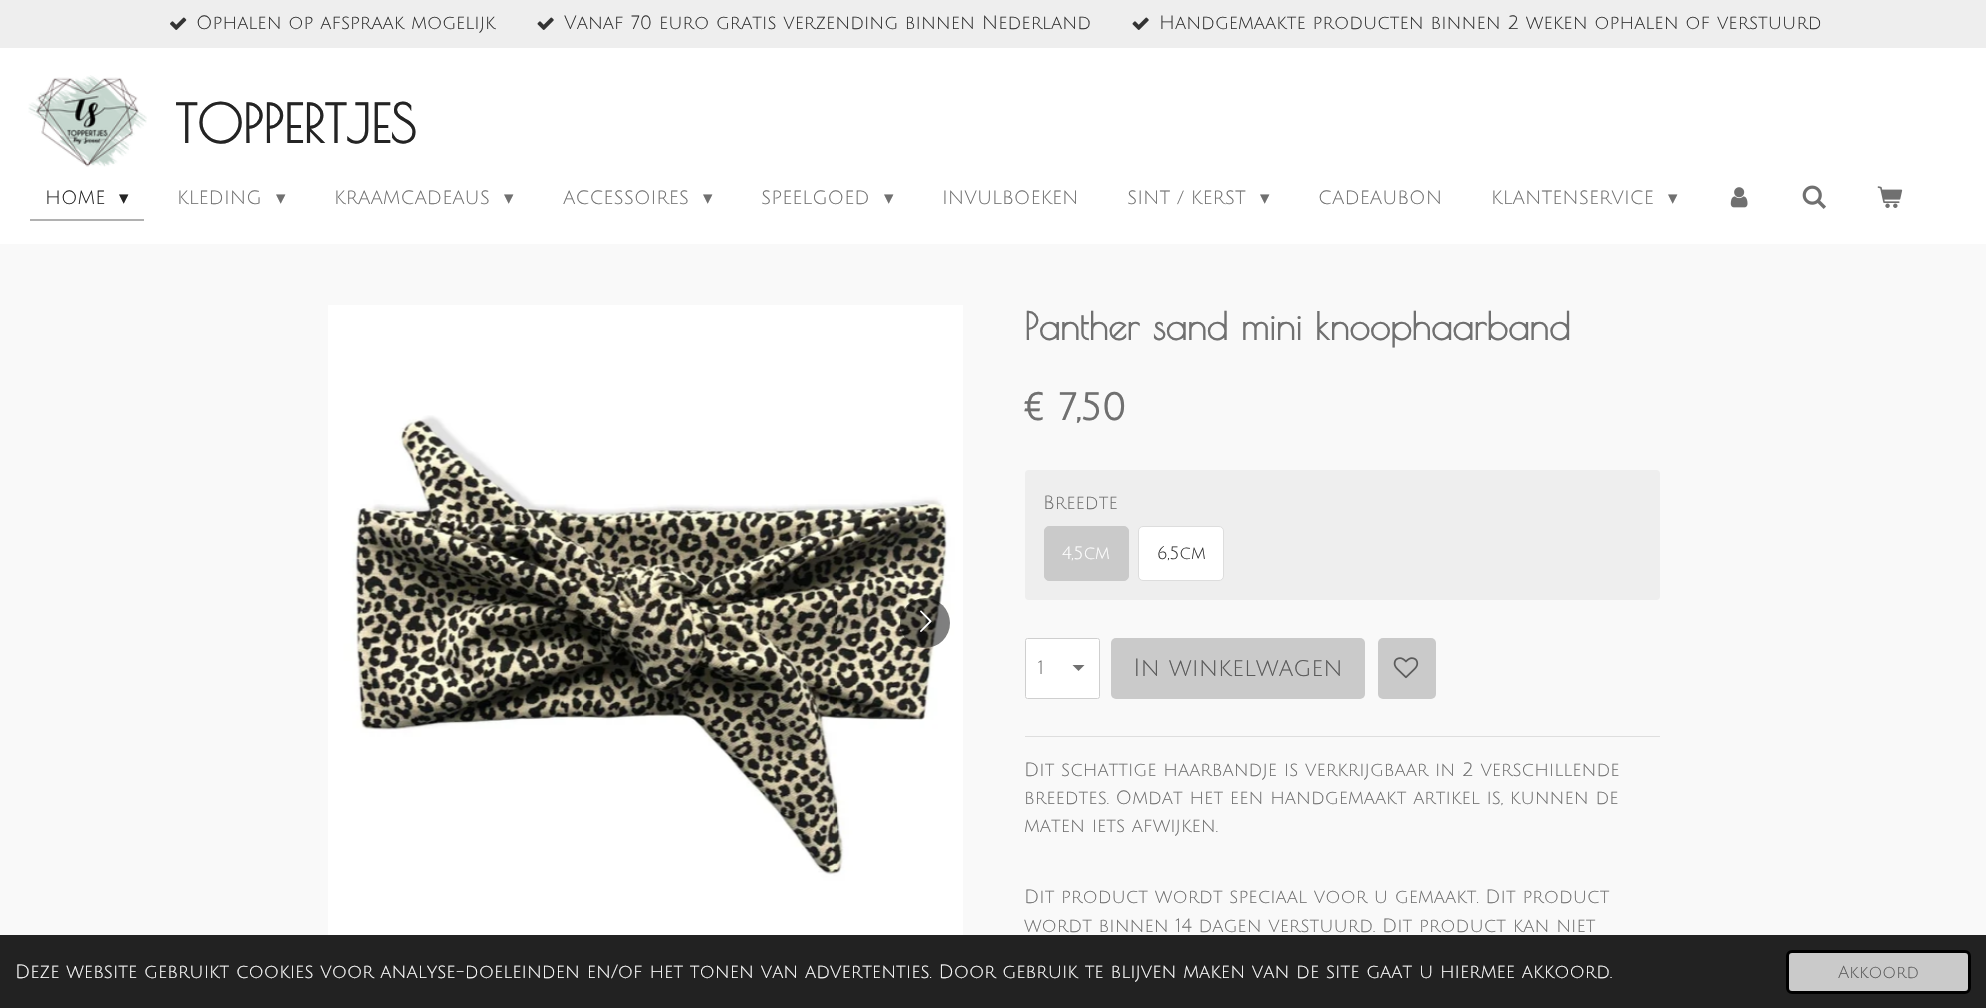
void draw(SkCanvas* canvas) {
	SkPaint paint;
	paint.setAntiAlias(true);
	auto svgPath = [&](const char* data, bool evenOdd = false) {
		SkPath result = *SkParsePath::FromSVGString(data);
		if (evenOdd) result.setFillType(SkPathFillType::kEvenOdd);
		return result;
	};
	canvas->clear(0xffeeeeee);
	canvas->drawImageRect(SkImages::DeferredFromEncodedData(SkData::MakeFromFileName("img1.png")), SkRect::MakeXYWH(170, 17, 17, 13), SkSamplingOptions());
	SkFont f1(fontMgr->matchFamilyStyle("Julius Sans One", SkFontStyle::Normal()), 18.75);
	f1.setSubpixel(true);
	paint.setColor(0xff333333);
	canvas->drawString("Ophalen op afspraak mogelijk", 196, 29, f1, paint);
	canvas->drawImageRect(SkImages::DeferredFromEncodedData(SkData::MakeFromFileName("img2.png")), SkRect::MakeXYWH(537, 17, 17, 13), SkSamplingOptions());
	canvas->drawString("Vanaf 70 euro gratis verzending binnen Nederland", 564, 29, f1, paint);
	canvas->drawImageRect(SkImages::DeferredFromEncodedData(SkData::MakeFromFileName("img2.png")), SkRect::MakeXYWH(1132, 17, 17, 13), SkSamplingOptions());
	canvas->drawString("Handgemaakte producten binnen 2 weken ophalen of verstuurd", 1159, 29, f1, paint);
	paint.setColor(0xffffffff);
	canvas->drawRect(SkRect::MakeXYWH(0, 48, 1986, 196), paint);
	canvas->drawImageRect(SkImages::DeferredFromEncodedData(SkData::MakeFromFileName("img3.png")), SkRect::MakeXYWH(28, 75, 119, 92), SkSamplingOptions());
	SkFont f2(fontMgr->matchFamilyStyle("Poiret One", SkFontStyle::Bold()), 52.5);
	f2.setSubpixel(true);
	paint.setColor(0xff242424);
	canvas->drawString("TOPPERTJES", 175, 143, f2, paint);
	paint.setColor(0xffb1b1b1);
	canvas->drawPath(svgPath("M30 219V221H144V180V219Z"), paint);
	paint.setColor(0xff242424);
	canvas->drawString("HOME", 45, 204, f1, paint);
	SkFont f3(fontMgr->matchFamilyStyle("DejaVu Sans", SkFontStyle::Normal()), 18.75);
	f3.setSubpixel(true);
	canvas->drawString("▾", 119, 204, f3, paint);
	paint.setColor(0xff707070);
	canvas->drawString("KLEDING", 177, 204, f1, paint);
	canvas->drawString("▾", 276, 204, f3, paint);
	canvas->drawString("KRAAMCADEAUS", 334, 204, f1, paint);
	canvas->drawString("▾", 504, 204, f3, paint);
	canvas->drawString("ACCESSOIRES", 563, 204, f1, paint);
	canvas->drawString("▾", 703, 204, f3, paint);
	canvas->drawString("SPEELGOED", 761, 204, f1, paint);
	canvas->drawString("▾", 884, 204, f3, paint);
	canvas->drawString("INVULBOEKEN", 942, 204, f1, paint);
	canvas->drawString("SINT / KERST", 1127, 204, f1, paint);
	canvas->drawString("▾", 1260, 204, f3, paint);
	canvas->drawString("CADEAUBON", 1318, 204, f1, paint);
	canvas->drawString("KLANTENSERVICE", 1491, 204, f1, paint);
	canvas->drawString("▾", 1668, 204, f3, paint);
	canvas->drawImageRect(SkImages::DeferredFromEncodedData(SkData::MakeFromFileName("img4.png")), SkRect::MakeXYWH(1730, 187, 18, 21), SkSamplingOptions());
	canvas->drawImageRect(SkImages::DeferredFromEncodedData(SkData::MakeFromFileName("img5.png")), SkRect::MakeXYWH(1802, 185, 24, 24), SkSamplingOptions());
	canvas->drawImageRect(SkImages::DeferredFromEncodedData(SkData::MakeFromFileName("img6.png")), SkRect::MakeXYWH(1877, 186, 26, 22), SkSamplingOptions());
	paint.setColor(0xfff9f9f9);
	canvas->drawRect(SkRect::MakeXYWH(0, 244, 1986, 691), paint);
	canvas->drawImageRect(SkImages::DeferredFromEncodedData(SkData::MakeFromFileName("img7.png")), SkRect::MakeXYWH(328, 305, 635, 630), SkSamplingOptions());
	paint.setColor(0x80000000);
	canvas->drawCircle(925, 623, 25, paint);
	canvas->drawImageRect(SkImages::DeferredFromEncodedData(SkData::MakeFromFileName("img8.png")), SkRect::MakeXYWH(920, 610, 12, 22), SkSamplingOptions());
	SkFont f4(fontMgr->matchFamilyStyle("Poiret One", SkFontStyle::Bold()), 37.5);
	f4.setSubpixel(true);
	paint.setColor(0xff707070);
	canvas->drawString("Panther sand mini knoophaarband", 1024, 340, f4, paint);
	SkFont f5(fontMgr->matchFamilyStyle("Julius Sans One", SkFontStyle::Bold()), 37.5);
	f5.setSubpixel(true);
	canvas->drawString("€ 7,50", 1024, 420, f5, paint);
	paint.setColor(0xffeeeeee);
	canvas->drawRoundRect(SkRect::MakeXYWH(1025, 470, 635, 130), 4, 4, paint);
	paint.setColor(0xff707070);
	canvas->drawString("Breedte", 1043, 509, f1, paint);
	paint.setColor(0xffcacaca);
	canvas->drawRoundRect(SkRect::MakeXYWH(1044.5, 526.5, 84, 54), 4.5, 4.5, paint);
	paint.setStroke(true);
	paint.setStrokeWidth(1);
	canvas->drawRoundRect(SkRect::MakeXYWH(1044.5, 526.5, 84, 54), 4.5, 4.5, paint);
	SkFont f6(fontMgr->matchFamilyStyle("Julius Sans One", SkFontStyle::Normal()), 17.5);
	f6.setSubpixel(true);
	paint.setStroke(false);
	paint.setColor(0xffffffff);
	canvas->drawString("4,5cm", 1062, 559, f6, paint);
	canvas->drawRoundRect(SkRect::MakeXYWH(1138.5, 526.5, 85, 54), 4.5, 4.5, paint);
	paint.setStroke(true);
	paint.setColor(0xffdddddd);
	canvas->drawRoundRect(SkRect::MakeXYWH(1138.5, 526.5, 85, 54), 4.5, 4.5, paint);
	paint.setStroke(false);
	paint.setColor(0xff333333);
	canvas->drawString("6,5cm", 1157, 559, f6, paint);
	paint.setColor(0xffffffff);
	canvas->drawRoundRect(SkRect::MakeXYWH(1025, 638, 75, 61), 2.5, 2.5, paint);
	paint.setColor(0xff707070);
	canvas->drawPath(svgPath("M1078.5 671L1072.5 665H1084.5Z"), paint);
	paint.setStroke(true);
	paint.setColor(0xffcfcfcf);
	canvas->drawRoundRect(SkRect::MakeXYWH(1025.5, 638.5, 74, 60), 2, 2, paint);
	paint.setStroke(false);
	paint.setColor(0xff707070);
	canvas->drawString("1", 1038, 674, f1, paint);
	paint.setColor(0xffcacaca);
	canvas->drawRoundRect(SkRect::MakeXYWH(1111, 638, 254, 61), 5, 5, paint);
	SkFont f7(fontMgr->matchFamilyStyle("Julius Sans One", SkFontStyle::Normal()), 24.4);
	f7.setSubpixel(true);
	paint.setColor(0xff5b5b5b);
	canvas->drawString("In winkelwagen", 1133, 676, f7, paint);
	paint.setColor(0xffcacaca);
	canvas->drawRoundRect(SkRect::MakeXYWH(1378, 638, 58, 61), 5, 5, paint);
	canvas->drawImageRect(SkImages::DeferredFromEncodedData(SkData::MakeFromFileName("img9.png")), SkRect::MakeXYWH(1393, 657, 26, 22), SkSamplingOptions());
	paint.setColor(0xffdedede);
	canvas->drawRect(SkRect::MakeXYWH(1025, 736, 635, 1), paint);
	paint.setColor(0xff707070);
	canvas->drawString("Dit schattige haarbandje is verkrijgbaar in 2 verschillende", 1024, 776, f1, paint);
	canvas->drawString("breedtes. Omdat het een handgemaakt artikel is, kunnen de", 1024, 804, f1, paint);
	canvas->drawString("maten iets afwijken.", 1024, 832, f1, paint);
	canvas->drawString("Dit product wordt speciaal voor u gemaakt. Dit product", 1024, 903, f1, paint);
	canvas->drawString("wordt binnen 14 dagen verstuurd. Dit product kan niet", 1024, 932, f1, paint);
	paint.setColor(0xff222222);
	canvas->drawRect(SkRect::MakeXYWH(0, 935, 1986, 73), paint);
	paint.setColor(0xffffffff);
	canvas->drawString("Deze website gebruikt cookies voor analyse-doeleinden en/of het tonen van advertenties. Door gebruik te blijven maken van de site gaat u hiermee akkoord.", 15, 978, f1, paint);
	paint.setColor(0xffcacaca);
	canvas->drawRoundRect(SkRect::MakeXYWH(1787.5, 951.5, 182, 41), 4.5, 4.5, paint);
	paint.setStroke(true);
	paint.setStrokeWidth(3);
	paint.setColor(0xff000000);
	canvas->drawRoundRect(SkRect::MakeXYWH(1787.5, 951.5, 182, 41), 4.5, 4.5, paint);
	SkFont f8(fontMgr->matchFamilyStyle("Julius Sans One", SkFontStyle::Normal()), 17);
	f8.setSubpixel(true);
	paint.setStroke(false);
	paint.setColor(0xff5b5b5b);
	canvas->drawString("Akkoord", 1838, 978, f8, paint);
}
